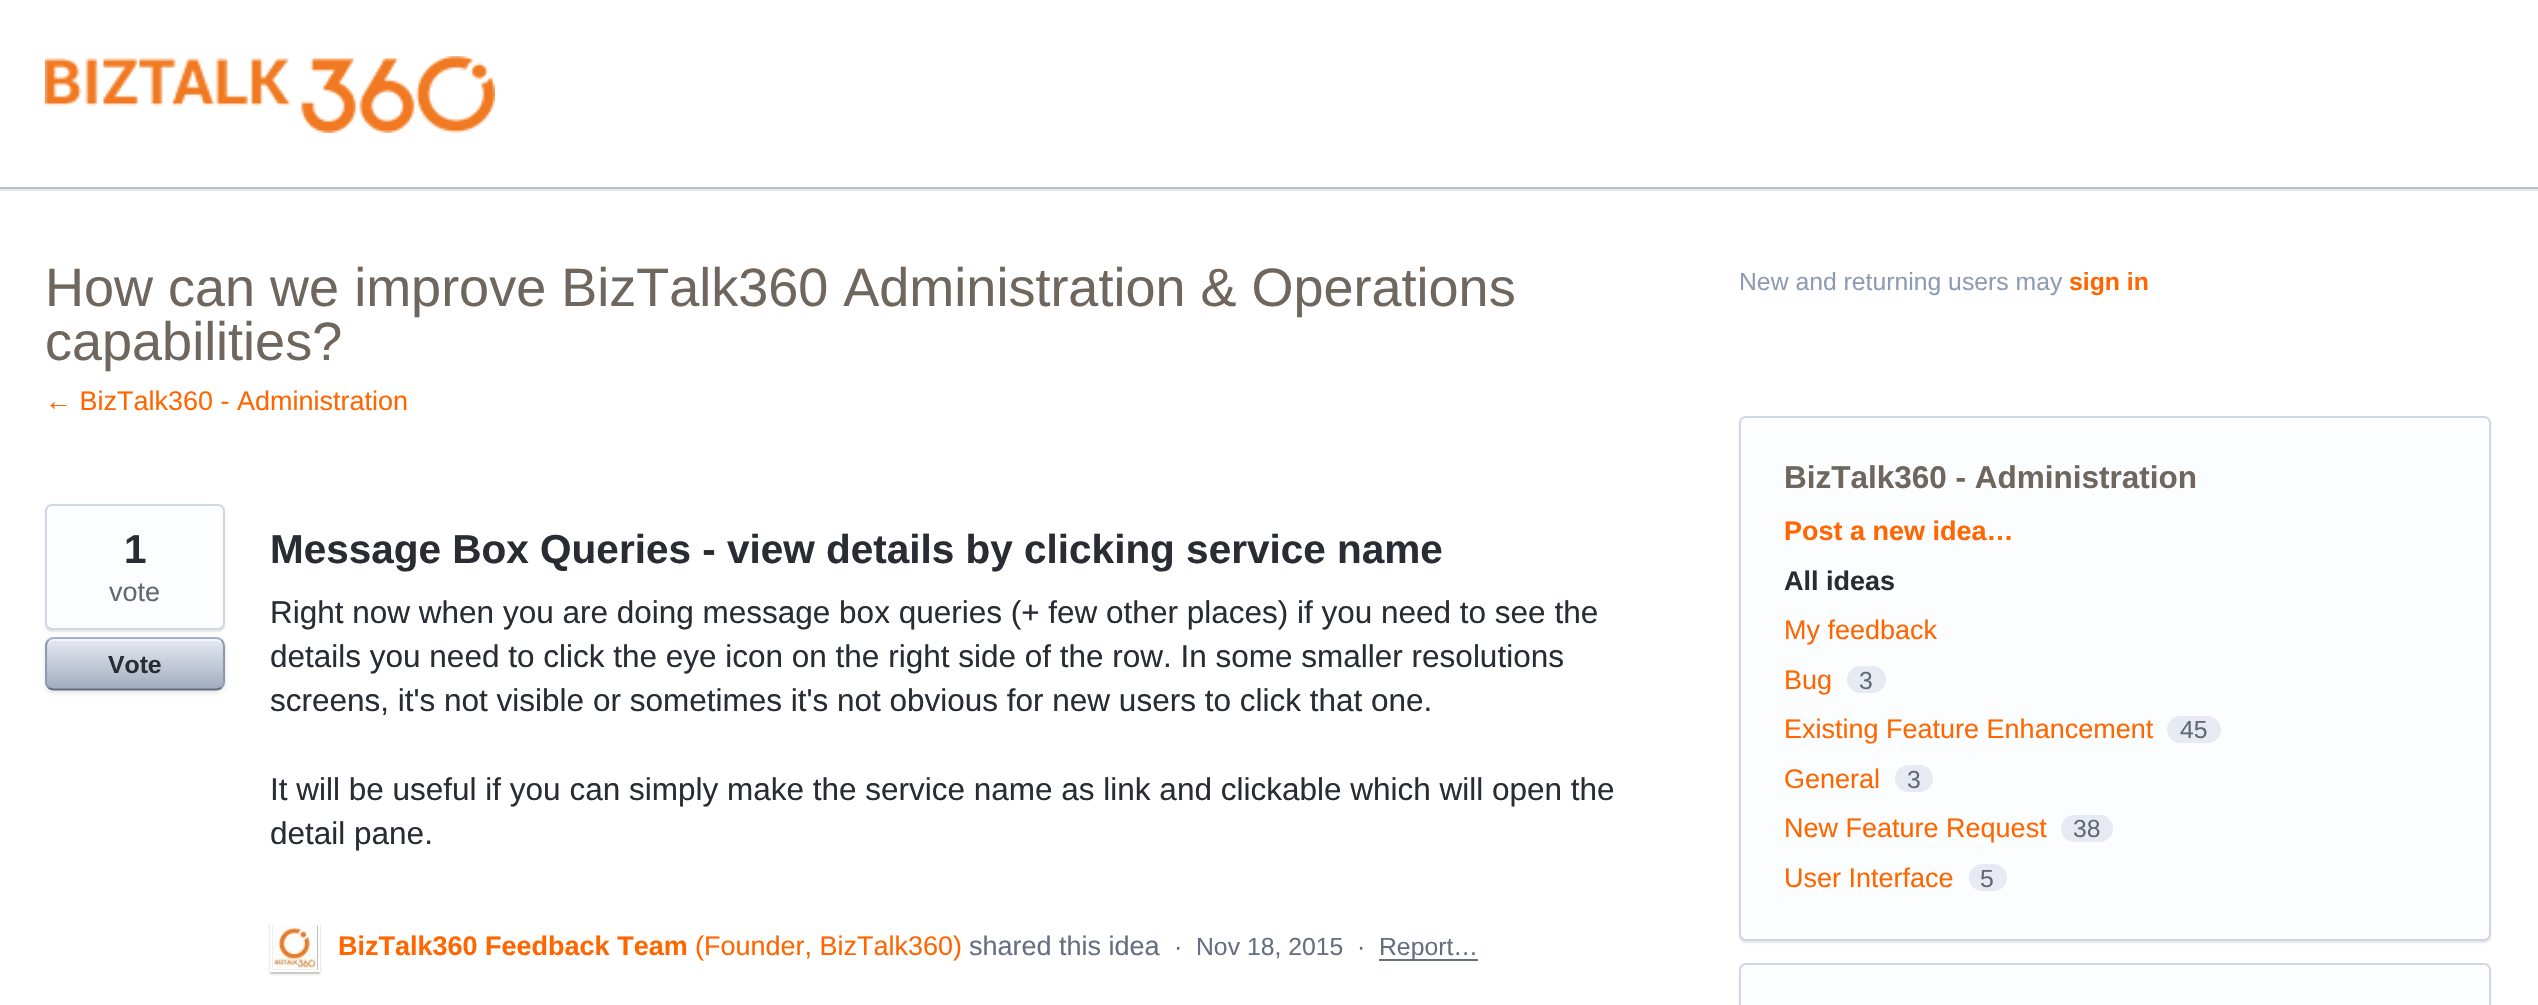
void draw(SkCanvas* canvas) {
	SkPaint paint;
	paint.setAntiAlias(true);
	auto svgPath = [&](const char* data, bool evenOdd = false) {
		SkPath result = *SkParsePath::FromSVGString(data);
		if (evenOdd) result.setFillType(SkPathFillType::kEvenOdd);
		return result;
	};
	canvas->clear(0xffffffff);
	paint.setColor(0xffbfbfbf);
	canvas->drawRect(SkRect::MakeXYWH(0, 187, 2538, 2), paint);
	canvas->drawImageRect(SkImages::DeferredFromEncodedData(SkData::MakeFromFileName("img1.png")), SkRect::MakeXYWH(45, 56, 450, 77), SkSamplingOptions());
	paint.setColor(0xffe3e8f2);
	canvas->drawRect(SkRect::MakeXYWH(0, 189, 2538, 2), paint);
	SkFont f1(fontMgr->matchFamilyStyle("Liberation Sans", SkFontStyle::Normal()), 54);
	f1.setSubpixel(true);
	paint.setColor(0xff6f675e);
	canvas->drawString("How can we improve BizTalk360 Administration & Operations", 45, 306, f1, paint);
	canvas->drawString("capabilities?", 45, 360, f1, paint);
	SkFont f2(fontMgr->matchFamilyStyle("Liberation Sans", SkFontStyle::Normal()), 27);
	f2.setSubpixel(true);
	paint.setColor(0xffff6600);
	canvas->drawString("← BizTalk360 - Administration", 45, 410, f2, paint);
	paint.setColor(0x1a000000);
	paint.setMaskFilter(SkMaskFilter::MakeBlur(kNormal_SkBlurStyle, 1));
	canvas->drawRoundRect(SkRect::MakeXYWH(45, 506, 180, 126), 7, 7, paint);
	paint.setMaskFilter(nullptr);
	paint.setColor(0xfffcfdff);
	canvas->drawRoundRect(SkRect::MakeXYWH(46, 505, 178, 124), 6, 6, paint);
	paint.setStroke(true);
	paint.setStrokeWidth(2);
	paint.setColor(0xffcfd7e6);
	canvas->drawRoundRect(SkRect::MakeXYWH(46, 505, 178, 124), 6, 6, paint);
	SkFont f3(fontMgr->matchFamilyStyle("Liberation Sans", SkFontStyle::Bold()), 40.5);
	f3.setSubpixel(true);
	paint.setStroke(false);
	paint.setColor(0xff292c33);
	canvas->drawString("1", 124, 563, f3, paint);
	paint.setColor(0xff616973);
	canvas->drawString("vote", 109, 601, f2, paint);
	paint.setColor(0x1a000000);
	paint.setMaskFilter(SkMaskFilter::MakeBlur(kNormal_SkBlurStyle, 2));
	canvas->drawRoundRect(SkRect::MakeXYWH(45, 639, 180, 54), 9, 9, paint);
	paint.setMaskFilter(nullptr);
	{
		const SkColor colors[] = {0xffe6eaf2, 0xffa2acbf};
		const float stops[] = {0, 1};
		const SkPoint ends[] = {{47, 639}, {47, 689}};
		paint.setShader(SkGradientShader::MakeLinear(ends, colors, stops, 2, SkTileMode::kClamp));
		paint.setAlpha(255);
	}
	canvas->drawRoundRect(SkRect::MakeXYWH(47, 639, 176, 50), 7, 7, paint);
	paint.setShader(nullptr);
	paint.setColor(0x80ffffff);
	canvas->drawPath(svgPath("M54 641H216C220 641 223 644 223 648V646C223 642 220 639 216 639H54C50 639 47 642 47 646V648C47 644 50 641 54 641Z"), paint);
	paint.setStroke(true);
	paint.setStrokeWidth(2.2);
	paint.setColor(0xffa3b1cc);
	canvas->drawPath(svgPath("M48.5 640C50 638.5 52 638 54 638H216C218 638 220 638.5 221.5 640"), paint);
	paint.setColor(0xff8f9bb3);
	canvas->drawPath(svgPath("M221.5 640C223 641.5 224 643.5 224 646V682C224 684 223 686 221.5 687.5"), paint);
	paint.setColor(0xff666f80);
	canvas->drawPath(svgPath("M221.5 687.5C220 689 218 689.5 216 689.5H54C52 689.5 50 689 48.5 687.5"), paint);
	canvas->save();
	canvas->clipRect(SkRect::MakeXYWH(45, 248, 2448, 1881));
	paint.setColor(0xff8f9bb3);
	canvas->drawPath(svgPath("M48.5 687.5C47 686 46 684 46 682V646C46 643.5 47 641.5 48.5 640"), paint);
	canvas->restore();
	SkFont f4(fontMgr->matchFamilyStyle("Liberation Sans", SkFontStyle::Bold()), 24.75);
	f4.setSubpixel(true);
	paint.setStroke(false);
	paint.setColor(0xff292c33);
	canvas->drawString("Vote", 108, 673, f4, paint);
	canvas->drawString("Message Box Queries - view details by clicking service name", 270, 563, f3, paint);
	SkFont f5(fontMgr->matchFamilyStyle("Liberation Sans", SkFontStyle::Normal()), 31.5);
	f5.setSubpixel(true);
	canvas->drawString("Right now when you are doing message box queries (+ few other places) if you need to see the", 270, 623, f5, paint);
	canvas->drawString("details you need to click the eye icon on the right side of the row. In some smaller resolutions", 270, 667, f5, paint);
	canvas->drawString("screens, it's not visible or sometimes it's not obvious for new users to click that one.", 270, 711, f5, paint);
	canvas->drawString("It will be useful if you can simply make the service name as link and clickable which will open the", 270, 800, f5, paint);
	canvas->drawString("detail pane.", 270, 844, f5, paint);
	paint.setColor(0x40000000);
	paint.setMaskFilter(SkMaskFilter::MakeBlur(kNormal_SkBlurStyle, 1));
	canvas->drawRect(SkRect::MakeXYWH(270, 925, 50, 49), paint);
	paint.setMaskFilter(nullptr);
	paint.setStroke(true);
	paint.setStrokeWidth(2);
	paint.setColor(0xffffffff);
	canvas->drawRect(SkRect::MakeXYWH(271, 924, 48, 47), paint);
	canvas->drawImageRect(SkImages::DeferredFromEncodedData(SkData::MakeFromFileName("img2.png")), SkRect::MakeXYWH(272, 925, 45, 45), SkSamplingOptions());
	SkFont f6(fontMgr->matchFamilyStyle("Liberation Sans", SkFontStyle::Bold()), 27);
	f6.setSubpixel(true);
	paint.setStroke(false);
	paint.setColor(0xffff6600);
	canvas->drawString("BizTalk360 Feedback Team", 338, 955, f6, paint);
	canvas->drawString("(Founder, BizTalk360)", 695, 955, f2, paint);
	paint.setColor(0xff666f80);
	canvas->drawString("shared this idea", 969, 955, f2, paint);
	SkFont f7(fontMgr->matchFamilyStyle("Liberation Sans", SkFontStyle::Normal()), 24.75);
	f7.setSubpixel(true);
	paint.setColor(0xff616973);
	canvas->drawString("·", 1174, 955, f7, paint);
	paint.setColor(0xff666f80);
	canvas->drawString("Nov 18, 2015", 1196, 955, f7, paint);
	paint.setColor(0xff616973);
	canvas->drawString("·", 1357, 955, f7, paint);
	paint.setColor(0xff666f80);
	canvas->drawRect(SkRect::MakeXYWH(1379, 959, 99, 2), paint);
	canvas->drawString("Report…", 1379, 955, f7, paint);
	paint.setColor(0xff8f9bb3);
	canvas->drawString("New and returning users may", 1739, 290, f7, paint);
	paint.setColor(0xffff6600);
	canvas->drawString("sign in", 2069, 290, f4, paint);
	paint.setColor(0x1a000000);
	paint.setMaskFilter(SkMaskFilter::MakeBlur(kNormal_SkBlurStyle, 1));
	canvas->drawRoundRect(SkRect::MakeXYWH(1739, 419, 752, 524), 7, 7, paint);
	paint.setMaskFilter(nullptr);
	paint.setColor(0xfffcfdff);
	canvas->drawRoundRect(SkRect::MakeXYWH(1740, 417, 750, 523), 6, 6, paint);
	paint.setStroke(true);
	paint.setColor(0xffcfd7e6);
	canvas->drawRoundRect(SkRect::MakeXYWH(1740, 417, 750, 523), 6, 6, paint);
	SkFont f8(fontMgr->matchFamilyStyle("Liberation Sans", SkFontStyle::Bold()), 31.5);
	f8.setSubpixel(true);
	paint.setStroke(false);
	paint.setColor(0xff6f675e);
	canvas->drawString("BizTalk360 - Administration", 1784, 488, f8, paint);
	paint.setColor(0xffff6600);
	canvas->drawString("Post a new idea…", 1784, 540, f6, paint);
	paint.setColor(0xff292c33);
	canvas->drawString("All ideas", 1784, 590, f6, paint);
	paint.setColor(0xffff6600);
	canvas->drawString("My feedback", 1784, 639, f2, paint);
	canvas->drawString("Bug", 1784, 689, f2, paint);
	paint.setColor(0xffe7eaf2);
	canvas->drawRoundRect(SkRect::MakeXYWH(1847, 666, 39, 27), 13.5, 13.5, paint);
	paint.setColor(0xff616973);
	canvas->drawString("3", 1859, 689, f7, paint);
	paint.setColor(0xffff6600);
	canvas->drawString("Existing Feature Enhancement", 1784, 738, f2, paint);
	paint.setColor(0xffe7eaf2);
	canvas->drawRoundRect(SkRect::MakeXYWH(2167, 716, 54, 27), 13.5, 13.5, paint);
	paint.setColor(0xff616973);
	canvas->drawString("45", 2180, 738, f7, paint);
	paint.setColor(0xffff6600);
	canvas->drawString("General", 1784, 788, f2, paint);
	paint.setColor(0xffe7eaf2);
	canvas->drawRoundRect(SkRect::MakeXYWH(1895, 765, 38, 27), 13.5, 13.5, paint);
	paint.setColor(0xff616973);
	canvas->drawString("3", 1907, 788, f7, paint);
	paint.setColor(0xffff6600);
	canvas->drawString("New Feature Request", 1784, 837, f2, paint);
	paint.setColor(0xffe7eaf2);
	canvas->drawRoundRect(SkRect::MakeXYWH(2061, 815, 52, 27), 13.5, 13.5, paint);
	paint.setColor(0xff616973);
	canvas->drawString("38", 2073, 837, f7, paint);
	paint.setColor(0xffff6600);
	canvas->drawString("User Interface", 1784, 887, f2, paint);
	paint.setColor(0xffe7eaf2);
	canvas->drawRoundRect(SkRect::MakeXYWH(1969, 864, 38, 27), 13.5, 13.5, paint);
	paint.setColor(0xff616973);
	canvas->drawString("5", 1980, 887, f7, paint);
	paint.setColor(0x1a000000);
	paint.setMaskFilter(SkMaskFilter::MakeBlur(kNormal_SkBlurStyle, 1));
	canvas->drawRoundRect(SkRect::MakeXYWH(1739, 965, 752, 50), 7, 7, paint);
	paint.setMaskFilter(nullptr);
	paint.setColor(0xfffcfdff);
	canvas->drawRoundRect(SkRect::MakeXYWH(1740, 964, 750, 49), 6, 6, paint);
	paint.setStroke(true);
	paint.setColor(0xffcfd7e6);
	canvas->drawRoundRect(SkRect::MakeXYWH(1740, 964, 750, 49), 6, 6, paint);
}
